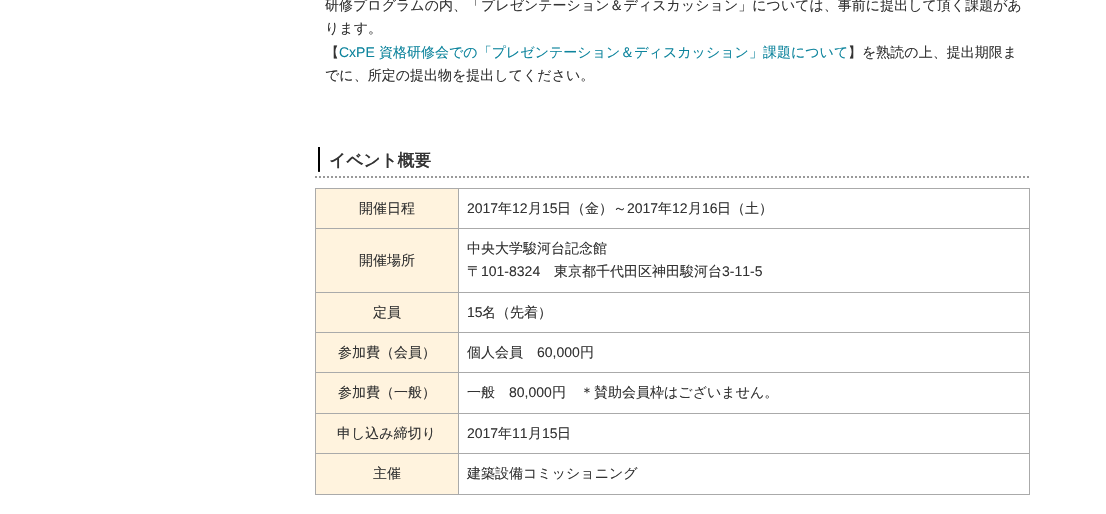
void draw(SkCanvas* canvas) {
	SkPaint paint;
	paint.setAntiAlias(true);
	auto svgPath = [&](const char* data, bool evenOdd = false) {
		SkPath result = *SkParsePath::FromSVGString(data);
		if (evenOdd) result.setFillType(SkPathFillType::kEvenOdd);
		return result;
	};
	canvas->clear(0xffffffff);
	SkFont f1(fontMgr->matchFamilyStyle("WenQuanYi Zen Hei", SkFontStyle(500, SkFontStyle::kNormal_Width, SkFontStyle::kUpright_Slant)), 14);
	f1.setSubpixel(true);
	paint.setColor(0xff333333);
	canvas->drawString("研修プログラムの内、「プレゼンテーション＆ディスカッション」については、事前に提出して頂く課題があ", 325, 10, f1, paint);
	canvas->drawString("ります。", 325, 33, f1, paint);
	canvas->drawString("【", 325, 57, f1, paint);
	SkFont f2(fontMgr->matchFamilyStyle("Liberation Sans", SkFontStyle::Normal()), 14);
	f2.setSubpixel(true);
	paint.setColor(0xff0d849d);
	canvas->drawString("CxPE", 339, 57, f2, paint);
	canvas->drawString("資格研修会での「プレゼンテーション＆ディスカッション」課題について", 379, 57, f1, paint);
	paint.setColor(0xff333333);
	canvas->drawString("】を熟読の上、提出期限ま", 848, 57, f1, paint);
	canvas->drawString("でに、所定の提出物を提出してください。", 325, 80, f1, paint);
	canvas->drawImageRect(SkImages::DeferredFromEncodedData(SkData::MakeFromFileName("img1.png")), SkRect::MakeXYWH(318, 147, 2, 25), SkSamplingOptions());
	paint.setStroke(true);
	paint.setStrokeWidth(2);
	paint.setColor(0xff999999);
	paint.setPathEffect(SkDashPathEffect::Make({{2, 2}}, 0));
	canvas->drawPath(svgPath("M315 177H1030"), paint);
	paint.setPathEffect(nullptr);
	SkFont f3(fontMgr->matchFamilyStyle("WenQuanYi Zen Hei", SkFontStyle::Bold()), 16.75);
	f3.setSubpixel(true);
	paint.setStroke(false);
	paint.setColor(0xff333333);
	canvas->drawString("イベント概要", 329, 166, f3, paint);
	paint.setColor(0xffaaaaaa);
	canvas->drawRect(SkRect::MakeXYWH(1029, 188, 1, 307), paint);
	canvas->drawRect(SkRect::MakeXYWH(315, 494, 715, 1), paint);
	paint.setColor(0xfffff3de);
	canvas->drawRect(SkRect::MakeXYWH(316, 189, 142, 39), paint);
	paint.setColor(0xffaaaaaa);
	canvas->drawRect(SkRect::MakeXYWH(458, 188, 572, 1), paint);
	canvas->drawRect(SkRect::MakeXYWH(458, 228, 572, 1), paint);
	canvas->drawRect(SkRect::MakeXYWH(458, 292, 572, 1), paint);
	canvas->drawRect(SkRect::MakeXYWH(458, 332, 572, 1), paint);
	canvas->drawRect(SkRect::MakeXYWH(458, 372, 572, 1), paint);
	canvas->drawRect(SkRect::MakeXYWH(458, 413, 572, 1), paint);
	canvas->drawRect(SkRect::MakeXYWH(458, 453, 572, 1), paint);
	canvas->drawRect(SkRect::MakeXYWH(458, 453, 1, 42), paint);
	canvas->drawRect(SkRect::MakeXYWH(315, 453, 144, 1), paint);
	canvas->drawRect(SkRect::MakeXYWH(458, 413, 1, 41), paint);
	canvas->drawRect(SkRect::MakeXYWH(315, 413, 144, 1), paint);
	canvas->drawRect(SkRect::MakeXYWH(458, 372, 1, 42), paint);
	canvas->drawRect(SkRect::MakeXYWH(315, 372, 144, 1), paint);
	canvas->drawRect(SkRect::MakeXYWH(458, 332, 1, 41), paint);
	canvas->drawRect(SkRect::MakeXYWH(315, 332, 144, 1), paint);
	canvas->drawRect(SkRect::MakeXYWH(458, 292, 1, 41), paint);
	canvas->drawRect(SkRect::MakeXYWH(315, 292, 144, 1), paint);
	canvas->drawRect(SkRect::MakeXYWH(458, 228, 1, 65), paint);
	canvas->drawRect(SkRect::MakeXYWH(315, 228, 144, 1), paint);
	canvas->drawRect(SkRect::MakeXYWH(458, 188, 1, 41), paint);
	canvas->drawRect(SkRect::MakeXYWH(315, 188, 144, 1), paint);
	canvas->drawRect(SkRect::MakeXYWH(315, 453, 1, 42), paint);
	canvas->drawRect(SkRect::MakeXYWH(315, 413, 1, 41), paint);
	canvas->drawRect(SkRect::MakeXYWH(315, 372, 1, 42), paint);
	canvas->drawRect(SkRect::MakeXYWH(315, 332, 1, 41), paint);
	canvas->drawRect(SkRect::MakeXYWH(315, 292, 1, 41), paint);
	canvas->drawRect(SkRect::MakeXYWH(315, 228, 1, 65), paint);
	canvas->drawRect(SkRect::MakeXYWH(315, 188, 1, 41), paint);
	paint.setColor(0xff333333);
	canvas->drawString("開催日程", 359, 213, f1, paint);
	canvas->drawString("2017", 467, 213, f2, paint);
	canvas->drawString("年", 498, 213, f1, paint);
	canvas->drawString("12", 512, 213, f2, paint);
	canvas->drawString("月", 528, 213, f1, paint);
	canvas->drawString("15", 542, 213, f2, paint);
	canvas->drawString("日（金）～", 557, 213, f1, paint);
	canvas->drawString("2017", 627, 213, f2, paint);
	canvas->drawString("年", 658, 213, f1, paint);
	canvas->drawString("12", 672, 213, f2, paint);
	canvas->drawString("月", 688, 213, f1, paint);
	canvas->drawString("16", 702, 213, f2, paint);
	canvas->drawString("日（土）", 717, 213, f1, paint);
	paint.setColor(0xfffff3de);
	canvas->drawRect(SkRect::MakeXYWH(316, 229, 142, 63), paint);
	paint.setColor(0xff333333);
	canvas->drawString("開催場所", 359, 265, f1, paint);
	canvas->drawString("中央大学駿河台記念館", 467, 253, f1, paint);
	canvas->drawString("〒", 467, 276, f1, paint);
	canvas->drawString("101-8324", 481, 276, f2, paint);
	canvas->drawString("東京都千代田区神田駿河台", 554, 276, f1, paint);
	canvas->drawString("3-11-5", 722, 276, f2, paint);
	paint.setColor(0xfffff3de);
	canvas->drawRect(SkRect::MakeXYWH(316, 293, 142, 39), paint);
	paint.setColor(0xff333333);
	canvas->drawString("定員", 373, 317, f1, paint);
	canvas->drawString("15", 467, 317, f2, paint);
	canvas->drawString("名（先着）", 482, 317, f1, paint);
	paint.setColor(0xfffff3de);
	canvas->drawRect(SkRect::MakeXYWH(316, 333, 142, 39), paint);
	paint.setColor(0xff333333);
	canvas->drawString("参加費（会員）", 338, 357, f1, paint);
	canvas->drawString("個人会員", 467, 357, f1, paint);
	canvas->drawString("60,000", 537, 357, f2, paint);
	canvas->drawString("円", 580, 357, f1, paint);
	paint.setColor(0xfffff3de);
	canvas->drawRect(SkRect::MakeXYWH(316, 373, 142, 40), paint);
	paint.setColor(0xff333333);
	canvas->drawString("参加費（一般）", 338, 397, f1, paint);
	canvas->drawString("一般", 467, 397, f1, paint);
	canvas->drawString("80,000", 509, 397, f2, paint);
	canvas->drawString("円　＊賛助会員枠はございません。", 552, 397, f1, paint);
	paint.setColor(0xfffff3de);
	canvas->drawRect(SkRect::MakeXYWH(316, 414, 142, 39), paint);
	paint.setColor(0xff333333);
	canvas->drawString("申し込み締切り", 337, 438, f1, paint);
	canvas->drawString("2017", 467, 438, f2, paint);
	canvas->drawString("年", 498, 438, f1, paint);
	canvas->drawString("11", 512, 438, f2, paint);
	canvas->drawString("月", 528, 438, f1, paint);
	canvas->drawString("15", 542, 438, f2, paint);
	canvas->drawString("日", 557, 438, f1, paint);
	paint.setColor(0xfffff3de);
	canvas->drawRect(SkRect::MakeXYWH(316, 454, 142, 40), paint);
	paint.setColor(0xff333333);
	canvas->drawString("主催", 373, 478, f1, paint);
	canvas->drawString("建築設備コミッショニング", 467, 478, f1, paint);
}
